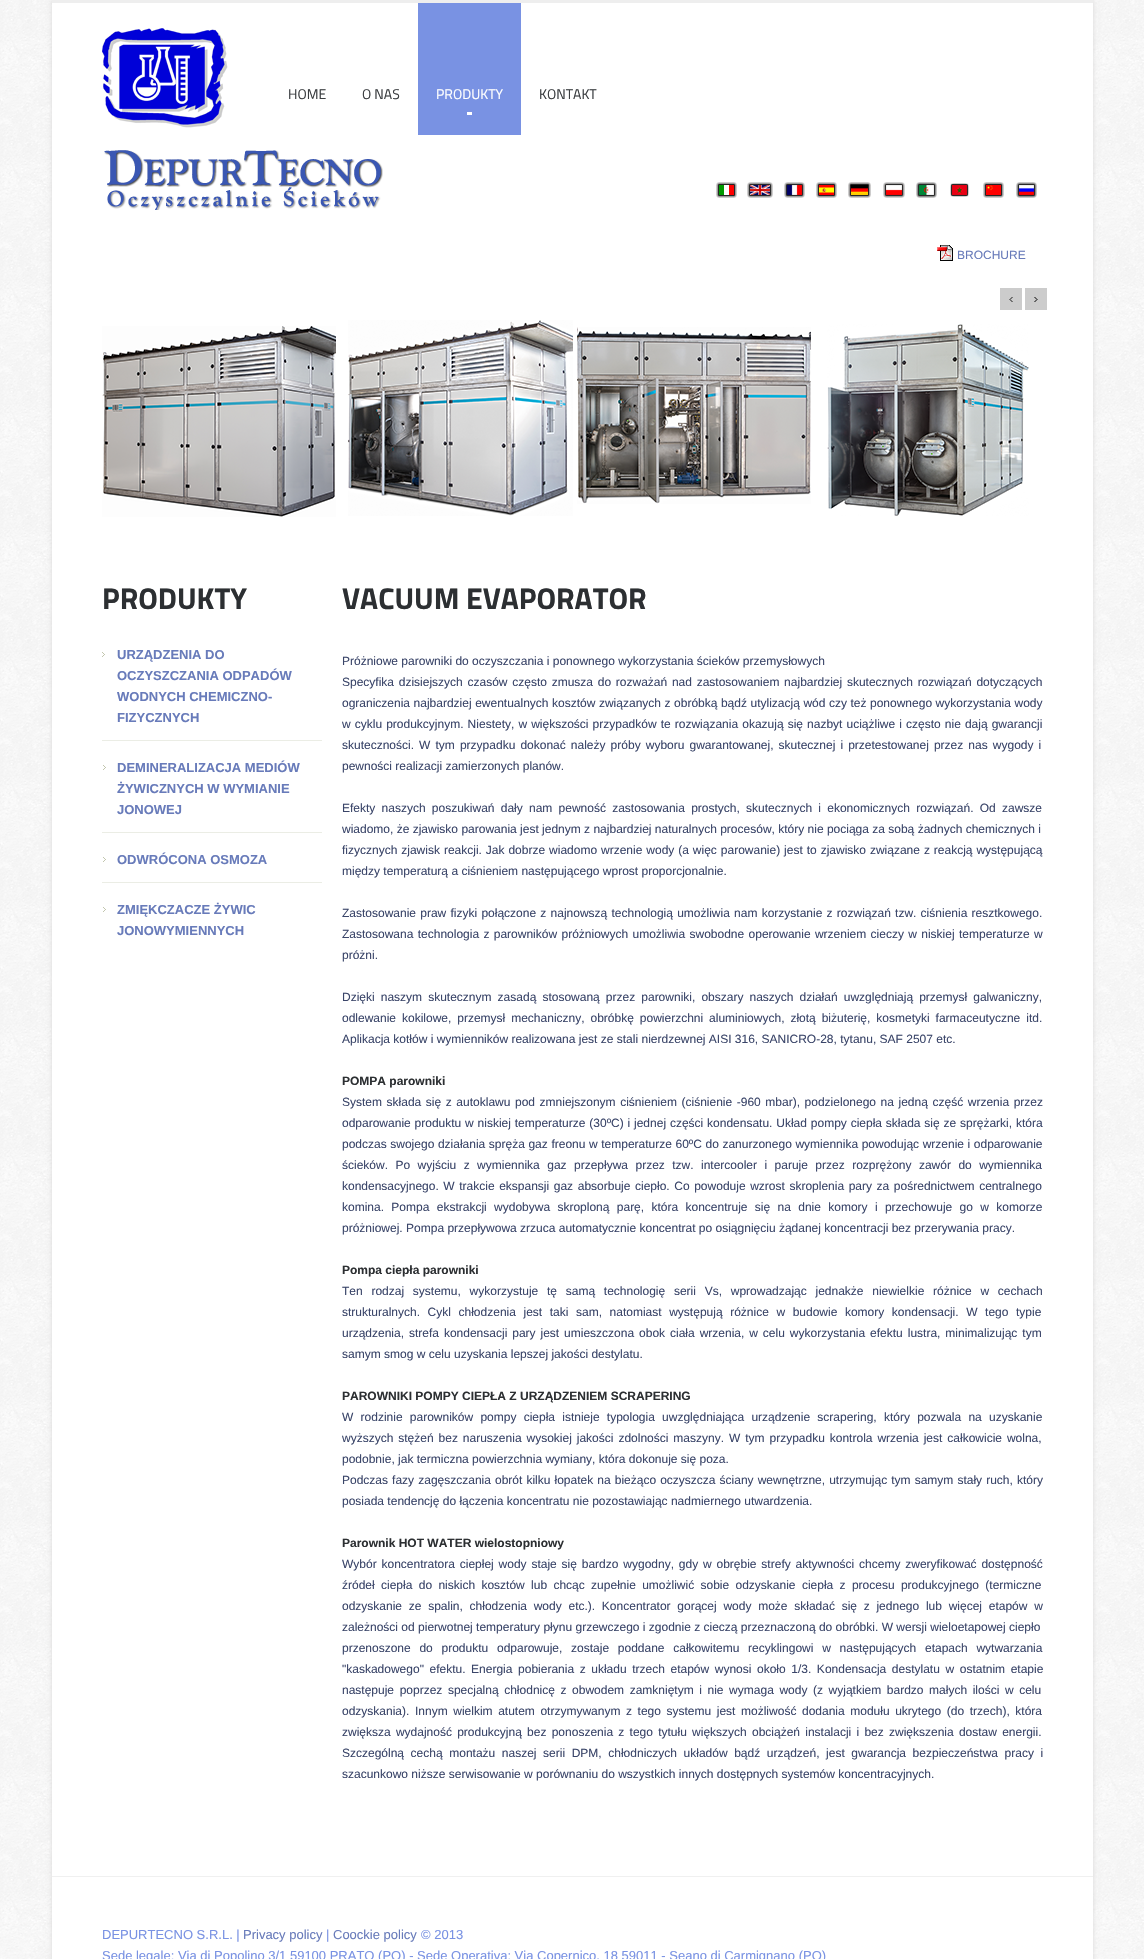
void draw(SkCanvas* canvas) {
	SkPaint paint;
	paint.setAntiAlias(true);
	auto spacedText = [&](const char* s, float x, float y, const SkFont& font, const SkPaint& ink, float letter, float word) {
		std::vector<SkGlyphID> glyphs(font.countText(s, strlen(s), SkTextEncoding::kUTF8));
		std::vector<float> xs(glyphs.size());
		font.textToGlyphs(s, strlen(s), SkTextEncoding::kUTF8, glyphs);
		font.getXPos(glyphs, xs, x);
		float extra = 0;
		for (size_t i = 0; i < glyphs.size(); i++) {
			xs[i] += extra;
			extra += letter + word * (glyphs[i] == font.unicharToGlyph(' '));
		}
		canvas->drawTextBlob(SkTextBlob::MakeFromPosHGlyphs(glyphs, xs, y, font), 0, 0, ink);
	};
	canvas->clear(0xffffffff);
	canvas->drawImageRect(SkImages::DeferredFromEncodedData(SkData::MakeFromFileName("img1.png")), SkRect::MakeXYWH(0, 0, 1144, 1959), SkSamplingOptions());
	paint.setColor(0xffd9d8d8);
	paint.setMaskFilter(SkMaskFilter::MakeBlur(kNormal_SkBlurStyle, 2.5));
	canvas->drawRect(SkRect::MakeXYWH(52, 0, 1041, 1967), paint);
	paint.setMaskFilter(nullptr);
	paint.setColor(0xffffffff);
	canvas->drawRect(SkRect::MakeXYWH(52, 3, 1041, 1956), paint);
	paint.setColor(0xffeeeeee);
	canvas->drawRect(SkRect::MakeXYWH(52, 0, 1041, 3), paint);
	canvas->drawImageRect(SkImages::DeferredFromEncodedData(SkData::MakeFromFileName("img2.png")), SkRect::MakeXYWH(102, 28, 126, 100), SkSamplingOptions());
	SkFont f1(fontMgr->matchFamilyStyle("Titillium Web", SkFontStyle::Normal()), 14);
	f1.setSubpixel(true);
	paint.setColor(0xff3a3d40);
	canvas->drawString("HOME", 288, 99, f1, paint);
	canvas->drawString("O NAS", 362, 99, f1, paint);
	paint.setColor(0xff7992e3);
	canvas->drawRect(SkRect::MakeXYWH(418, 3, 103, 132), paint);
	paint.setColor(0xffffffff);
	canvas->drawString("PRODUKTY", 436, 99, f1, paint);
	canvas->drawRect(SkRect::MakeXYWH(467, 112, 5, 3), paint);
	paint.setColor(0xff3a3d40);
	canvas->drawString("KONTAKT", 539, 99, f1, paint);
	canvas->drawImageRect(SkImages::DeferredFromEncodedData(SkData::MakeFromFileName("img3.png")), SkRect::MakeXYWH(104, 150, 279, 60), SkSamplingOptions());
	canvas->drawImageRect(SkImages::DeferredFromEncodedData(SkData::MakeFromFileName("img4.png")), SkRect::MakeXYWH(716, 182, 21, 16), SkSamplingOptions());
	canvas->drawImageRect(SkImages::DeferredFromEncodedData(SkData::MakeFromFileName("img5.png")), SkRect::MakeXYWH(747, 182, 26, 16), SkSamplingOptions());
	canvas->drawImageRect(SkImages::DeferredFromEncodedData(SkData::MakeFromFileName("img6.png")), SkRect::MakeXYWH(784, 182, 21, 16), SkSamplingOptions());
	canvas->drawImageRect(SkImages::DeferredFromEncodedData(SkData::MakeFromFileName("img7.png")), SkRect::MakeXYWH(816, 182, 21, 16), SkSamplingOptions());
	canvas->drawImageRect(SkImages::DeferredFromEncodedData(SkData::MakeFromFileName("img8.png")), SkRect::MakeXYWH(848, 182, 23, 16), SkSamplingOptions());
	canvas->drawImageRect(SkImages::DeferredFromEncodedData(SkData::MakeFromFileName("img9.png")), SkRect::MakeXYWH(883, 182, 22, 16), SkSamplingOptions());
	canvas->drawImageRect(SkImages::DeferredFromEncodedData(SkData::MakeFromFileName("img10.png")), SkRect::MakeXYWH(916, 182, 21, 16), SkSamplingOptions());
	canvas->drawImageRect(SkImages::DeferredFromEncodedData(SkData::MakeFromFileName("img11.png")), SkRect::MakeXYWH(950, 183, 19, 14), SkSamplingOptions());
	canvas->drawImageRect(SkImages::DeferredFromEncodedData(SkData::MakeFromFileName("img12.png")), SkRect::MakeXYWH(983, 182, 21, 16), SkSamplingOptions());
	canvas->drawImageRect(SkImages::DeferredFromEncodedData(SkData::MakeFromFileName("img13.png")), SkRect::MakeXYWH(1016, 182, 21, 16), SkSamplingOptions());
	canvas->drawImageRect(SkImages::DeferredFromEncodedData(SkData::MakeFromFileName("img14.png")), SkRect::MakeXYWH(937, 245, 16, 16), SkSamplingOptions());
	SkFont f2(fontMgr->matchFamilyStyle("Liberation Sans", SkFontStyle::Normal()), 12);
	f2.setSubpixel(true);
	paint.setColor(0xff687bba);
	canvas->drawString("BROCHURE", 957, 259, f2, paint);
	canvas->drawImageRect(SkImages::DeferredFromEncodedData(SkData::MakeFromFileName("img15.png")), SkRect::MakeXYWH(1000, 288, 22, 22), SkSamplingOptions());
	canvas->drawImageRect(SkImages::DeferredFromEncodedData(SkData::MakeFromFileName("img16.png")), SkRect::MakeXYWH(1025, 288, 22, 22), SkSamplingOptions());
	canvas->drawImageRect(SkImages::DeferredFromEncodedData(SkData::MakeFromFileName("img17.png")), SkRect::MakeXYWH(102, 326, 234, 191), SkSamplingOptions());
	canvas->drawImageRect(SkImages::DeferredFromEncodedData(SkData::MakeFromFileName("img18.png")), SkRect::MakeXYWH(348, 320, 225, 196), SkSamplingOptions());
	canvas->drawImageRect(SkImages::DeferredFromEncodedData(SkData::MakeFromFileName("img19.png")), SkRect::MakeXYWH(577, 327, 234, 177), SkSamplingOptions());
	canvas->drawImageRect(SkImages::DeferredFromEncodedData(SkData::MakeFromFileName("img20.png")), SkRect::MakeXYWH(827, 324, 202, 192), SkSamplingOptions());
	SkFont f3(fontMgr->matchFamilyStyle("Titillium Web", SkFontStyle::Bold()), 30);
	f3.setSubpixel(true);
	paint.setColor(0xff2c2f32);
	canvas->drawString("PRODUKTY", 102, 609, f3, paint);
	canvas->drawImageRect(SkImages::DeferredFromEncodedData(SkData::MakeFromFileName("img21.png")), SkRect::MakeXYWH(102, 652, 3, 5), SkSamplingOptions());
	SkFont f4(fontMgr->matchFamilyStyle("Liberation Sans", SkFontStyle::Bold()), 13);
	f4.setSubpixel(true);
	paint.setColor(0xff687bba);
	canvas->drawString("URZĄDZENIA DO", 117, 659, f4, paint);
	canvas->drawString("OCZYSZCZANIA ODPADÓW", 117, 680, f4, paint);
	canvas->drawString("WODNYCH CHEMICZNO-", 117, 701, f4, paint);
	canvas->drawString("FIZYCZNYCH", 117, 722, f4, paint);
	canvas->drawImageRect(SkImages::DeferredFromEncodedData(SkData::MakeFromFileName("img21.png")), SkRect::MakeXYWH(103, 765, 3, 5), SkSamplingOptions());
	paint.setColor(0xffebede5);
	canvas->drawRect(SkRect::MakeXYWH(102, 740, 220, 1), paint);
	paint.setColor(0xff687bba);
	canvas->drawString("DEMINERALIZACJA MEDIÓW", 117, 772, f4, paint);
	canvas->drawString("ŻYWICZNYCH W WYMIANIE", 117, 793, f4, paint);
	canvas->drawString("JONOWEJ", 117, 814, f4, paint);
	canvas->drawImageRect(SkImages::DeferredFromEncodedData(SkData::MakeFromFileName("img21.png")), SkRect::MakeXYWH(103, 857, 3, 5), SkSamplingOptions());
	paint.setColor(0xffebede5);
	canvas->drawRect(SkRect::MakeXYWH(102, 832, 220, 1), paint);
	paint.setColor(0xff687bba);
	canvas->drawString("ODWRÓCONA OSMOZA", 117, 864, f4, paint);
	canvas->drawImageRect(SkImages::DeferredFromEncodedData(SkData::MakeFromFileName("img21.png")), SkRect::MakeXYWH(103, 907, 3, 5), SkSamplingOptions());
	paint.setColor(0xffebede5);
	canvas->drawRect(SkRect::MakeXYWH(102, 882, 220, 1), paint);
	paint.setColor(0xff687bba);
	canvas->drawString("ZMIĘKCZACZE ŻYWIC", 117, 914, f4, paint);
	canvas->drawString("JONOWYMIENNYCH", 117, 935, f4, paint);
	paint.setColor(0xff2c2f32);
	canvas->drawString("VACUUM EVAPORATOR", 342, 609, f3, paint);
	paint.setColor(0xff3a4569);
	canvas->drawString("Próżniowe parowniki do oczyszczania i ponownego wykorzystania ścieków przemysłowych", 342, 665, f2, paint);
	spacedText("Specyfika dzisiejszych czasów często zmusza do rozważań nad zastosowaniem najbardziej skutecznych rozwiązań dotyczących", 342, 686, f2, paint, 0, 1.4);
	spacedText("ograniczenia najbardziej ewentualnych kosztów związanych z obróbką bądź utylizacją wód czy też ponownego wykorzystania wody", 342, 707, f2, paint, 0, 0.2);
	spacedText("w cyklu produkcyjnym. Niestety, w większości przypadków te rozwiązania okazują się nazbyt uciążliwe i często nie dają gwarancji", 342, 728, f2, paint, 0, 0.75);
	spacedText("skuteczności. W tym przypadku dokonać należy próby wyboru gwarantowanej, skutecznej i przetestowanej przez nas wygody i", 342, 749, f2, paint, 0, 1.75);
	canvas->drawString("pewności realizacji zamierzonych planów.", 342, 770, f2, paint);
	spacedText("Efekty naszych poszukiwań dały nam pewność zastosowania prostych, skutecznych i ekonomicznych rozwiązań. Od zawsze", 342, 812, f2, paint, 0, 2.9);
	canvas->drawString("wiadomo, że zjawisko parowania jest jednym z najbardziej naturalnych procesów, który nie pociąga za sobą żadnych chemicznych i", 342, 833, f2, paint);
	spacedText("fizycznych zjawisk reakcji. Jak dobrze wiadomo wrzenie wody (a więc parowanie) jest to zjawisko związane z reakcją występującą", 342, 854, f2, paint, 0, 0.6);
	canvas->drawString("między temperaturą a ciśnieniem następującego wprost proporcjonalnie.", 342, 875, f2, paint);
	spacedText("Zastosowanie praw fizyki połączone z najnowszą technologią umożliwia nam korzystanie z rozwiązań tzw. ciśnienia resztkowego.", 342, 917, f2, paint, 0, 0.9);
	spacedText("Zastosowana technologia z parowników próżniowych umożliwia swobodne operowanie wrzeniem cieczy w niskiej temperaturze w", 342, 938, f2, paint, 0, 1);
	canvas->drawString("próżni.", 342, 959, f2, paint);
	spacedText("Dzięki naszym skutecznym zasadą stosowaną przez parowniki, obszary naszych działań uwzględniają przemysł galwaniczny,", 342, 1001, f2, paint, 0, 2.75);
	spacedText("odlewanie kokilowe, przemysł mechaniczny, obróbkę powierzchni aluminiowych, złotą biżuterię, kosmetyki farmaceutyczne itd.", 342, 1022, f2, paint, 0, 2.6);
	canvas->drawString("Aplikacja kotłów i wymienników realizowana jest ze stali nierdzewnej AISI 316, SANICRO-28, tytanu, SAF 2507 etc.", 342, 1043, f2, paint);
	SkFont f5(fontMgr->matchFamilyStyle("Liberation Sans", SkFontStyle::Bold()), 12);
	f5.setSubpixel(true);
	paint.setColor(0xff2c2f32);
	canvas->drawString("POMPA parowniki", 342, 1085, f5, paint);
	paint.setColor(0xff3a4569);
	spacedText("System składa się z autoklawu pod zmniejszonym ciśnieniem (ciśnienie -960 mbar), podzielonego na jedną część wrzenia przez", 342, 1106, f2, paint, 0, 1.25);
	spacedText("odparowanie produktu w niskiej temperaturze (30ºC) i jednej części kondensatu. Układ pompy ciepła składa się ze sprężarki, która", 342, 1127, f2, paint, 0, 0.5);
	spacedText("podczas swojego działania spręża gaz freonu w temperaturze 60ºC do zanurzonego wymiennika powodując wrzenie i odparowanie", 342, 1148, f2, paint, 0, 0.25);
	spacedText("ścieków. Po wyjściu z wymiennika gaz przepływa przez tzw. intercooler i paruje przez rozprężony zawór do wymiennika", 342, 1169, f2, paint, 0, 4.1);
	spacedText("kondensacyjnego. W trakcie ekspansji gaz absorbuje ciepło. Co powoduje wzrost skroplenia pary za pośrednictwem centralnego", 342, 1190, f2, paint, 0, 1.25);
	spacedText("komina. Pompa ekstrakcji wydobywa skroploną parę, która koncentruje się na dnie komory i przechowuje go w komorze", 342, 1211, f2, paint, 0, 4);
	canvas->drawString("próżniowej. Pompa przepływowa zrzuca automatycznie koncentrat po osiągnięciu żądanej koncentracji bez przerywania pracy.", 342, 1232, f2, paint);
	paint.setColor(0xff2c2f32);
	canvas->drawString("Pompa ciepła parowniki", 342, 1274, f5, paint);
	paint.setColor(0xff3a4569);
	spacedText("Ten rodzaj systemu, wykorzystuje tę samą technologię serii Vs, wprowadzając jednakże niewielkie różnice w cechach", 342, 1295, f2, paint, 0, 5.4);
	spacedText("strukturalnych. Cykl chłodzenia jest taki sam, natomiast występują różnice w budowie komory kondensacji. W tego typie", 342, 1316, f2, paint, 0, 4.25);
	spacedText("urządzenia, strefa kondensacji pary jest umieszczona obok ciała wrzenia, w celu wykorzystania efektu lustra, minimalizując tym", 342, 1337, f2, paint, 0, 1.6);
	canvas->drawString("samym smog w celu uzyskania lepszej jakości destylatu.", 342, 1358, f2, paint);
	paint.setColor(0xff2c2f32);
	canvas->drawString("PAROWNIKI POMPY CIEPŁA Z URZĄDZENIEM SCRAPERING", 342, 1400, f5, paint);
	paint.setColor(0xff3a4569);
	spacedText("W rodzinie parowników pompy ciepła istnieje typologia uwzględniająca urządzenie scrapering, który pozwala na uzyskanie", 342, 1421, f2, paint, 0, 3.9);
	spacedText("wyższych stężeń bez naruszenia wysokiej jakości zdolności maszyny. W tym przypadku kontrola wrzenia jest całkowicie wolna,", 342, 1442, f2, paint, 0, 1.6);
	canvas->drawString("podobnie, jak termiczna powierzchnia wymiany, która dokonuje się poza.", 342, 1463, f2, paint);
	spacedText("Podczas fazy zagęszczania obrót kilku łopatek na bieżąco oczyszcza ściany wewnętrzne, utrzymując tym samym stały ruch, który", 342, 1484, f2, paint, 0, 0.75);
	canvas->drawString("posiada tendencję do łączenia koncentratu nie pozostawiając nadmiernego utwardzenia.", 342, 1505, f2, paint);
	paint.setColor(0xff2c2f32);
	canvas->drawString("Parownik HOT WATER wielostopniowy", 342, 1547, f5, paint);
	paint.setColor(0xff3a4569);
	spacedText("Wybór koncentratora ciepłej wody staje się bardzo wygodny, gdy w obrębie strefy aktywności chcemy zweryfikować dostępność", 342, 1568, f2, paint, 0, 1.5);
	spacedText("źródeł ciepła do niskich kosztów lub chcąc zupełnie umożliwić sobie odzyskanie ciepła z procesu produkcyjnego (termiczne", 342, 1589, f2, paint, 0, 3);
	spacedText("odzyskanie ze spalin, chłodzenia wody etc.). Koncentrator gorącej wody może składać się z jednego lub więcej etapów w", 342, 1610, f2, paint, 0, 3.4);
	canvas->drawString("zależności od pierwotnej temperatury płynu grzewczego i zgodnie z cieczą przeznaczoną do obróbki. W wersji wieloetapowej ciepło", 342, 1631, f2, paint);
	spacedText("przenoszone do produktu odparowuje, zostaje poddane całkowitemu recyklingowi w następujących etapach wytwarzania", 342, 1652, f2, paint, 0, 5.4);
	spacedText("\"kaskadowego\" efektu. Energia pobierania z układu trzech etapów wynosi około 1/3. Kondensacja destylatu w ostatnim etapie", 342, 1673, f2, paint, 0, 2.25);
	spacedText("następuje poprzez specjalną chłodnicę z obwodem zamkniętym i nie wymaga wody (z wyjątkiem bardzo małych ilości w celu", 342, 1694, f2, paint, 0, 2.25);
	spacedText("odzyskania). Innym wielkim atutem otrzymywanym z tego systemu jest możliwość dodania modułu ukrytego (do trzech), która", 342, 1715, f2, paint, 0, 2.25);
	spacedText("zwiększa wydajność produkcyjną bez ponoszenia z tego tytułu większych obciążeń instalacji i bez zwiększenia dostaw energii.", 342, 1736, f2, paint, 0, 1.9);
	spacedText("Szczególną cechą montażu naszej serii DPM, chłodniczych układów bądź urządzeń, jest gwarancja bezpieczeństwa pracy i", 342, 1757, f2, paint, 0, 3.25);
	canvas->drawString("szacunkowo niższe serwisowanie w porównaniu do wszystkich innych dostępnych systemów koncentracyjnych.", 342, 1778, f2, paint);
	paint.setColor(0xfff0f0f0);
	canvas->drawRect(SkRect::MakeXYWH(52, 1876, 1041, 1), paint);
	SkFont f6(fontMgr->matchFamilyStyle("Liberation Sans", SkFontStyle::Normal()), 13);
	f6.setSubpixel(true);
	paint.setColor(0xff7992e3);
	canvas->drawString("DEPURTECNO S.R.L. |", 102, 1939, f6, paint);
	paint.setColor(0xff687bba);
	canvas->drawString("Privacy policy", 243, 1939, f6, paint);
	paint.setColor(0xff7992e3);
	canvas->drawString("|", 326, 1939, f6, paint);
	paint.setColor(0xff687bba);
	canvas->drawString("Coockie policy", 333, 1939, f6, paint);
	paint.setColor(0xff7992e3);
	canvas->drawString("© 2013", 421, 1939, f6, paint);
	canvas->drawString("Sede legale: Via di Popolino 3/1 59100 PRATO (PO) - Sede Operativa: Via Copernico, 18 59011 - Seano di Carmignano (PO)", 102, 1960, f6, paint);
}
